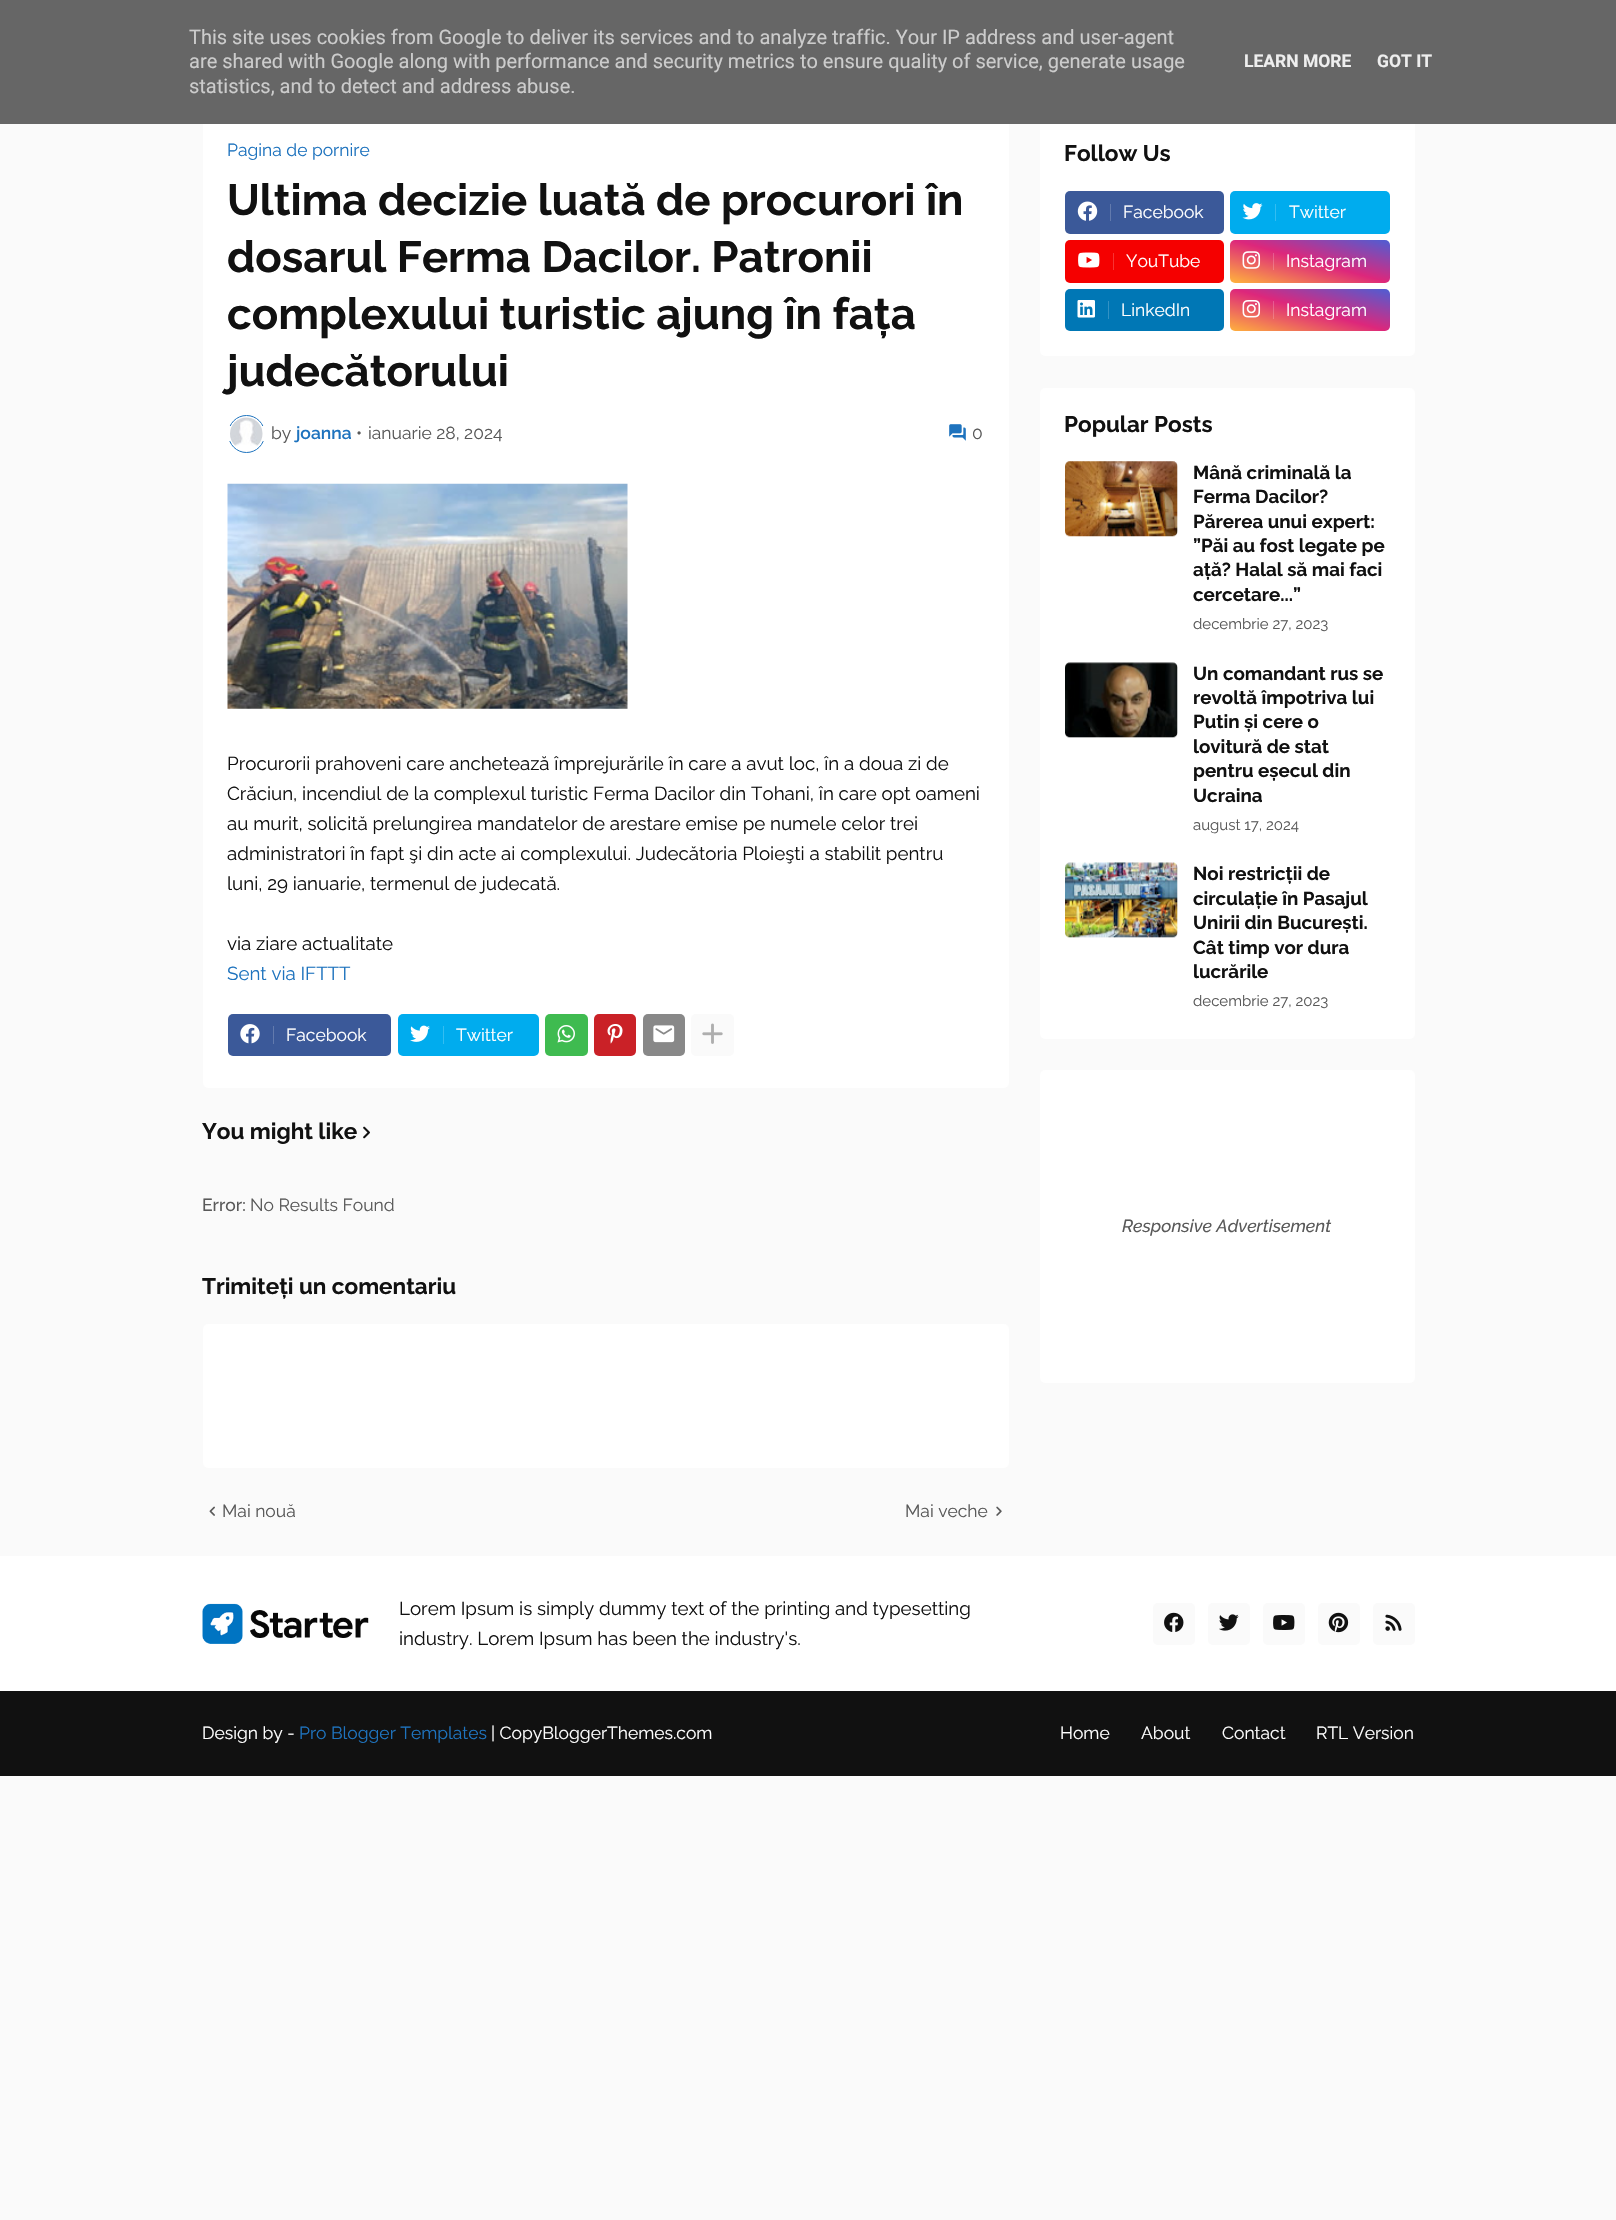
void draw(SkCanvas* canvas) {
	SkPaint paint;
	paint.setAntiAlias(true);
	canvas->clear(0xfffafafa);
	paint.setColor(0xffffffff);
	canvas->drawRoundRect(SkRect::MakeXYWH(203, 116, 806, 972), 5, 5, paint);
	canvas->drawRoundRect(SkRect::MakeXYWH(1040, 116, 375, 240), 5, 5, paint);
	paint.setColor(0xff666666);
	canvas->drawRect(SkRect::MakeXYWH(0, 0, 1616, 124), paint);
	SkFont f1(fontMgr->matchFamilyStyle("Roboto", SkFontStyle::Normal()), 20);
	f1.setSubpixel(true);
	paint.setColor(0xffcccccc);
	canvas->drawString("This site uses cookies from Google to deliver its services and to analyze traffic. Your IP address and user-agent", 189, 44, f1, paint);
	canvas->drawString("are shared with Google along with performance and security metrics to ensure quality of service, generate usage", 189, 68, f1, paint);
	canvas->drawString("statistics, and to detect and address abuse.", 189, 93, f1, paint);
	SkFont f2(fontMgr->matchFamilyStyle("Roboto", SkFontStyle::Bold()), 17.5);
	f2.setSubpixel(true);
	paint.setColor(0xffeeeeee);
	canvas->drawString("LEARN MORE", 1244, 67, f2, paint);
	canvas->drawString("GOT IT", 1377, 67, f2, paint);
	SkFont f3(fontMgr->matchFamilyStyle("Raleway", SkFontStyle::Normal()), 17.5);
	f3.setSubpixel(true);
	paint.setColor(0xff1e73be);
	canvas->drawString("Pagina de pornire", 227, 156, f3, paint);
	SkFont f4(fontMgr->matchFamilyStyle("Raleway", SkFontStyle::Bold()), 43.75);
	f4.setSubpixel(true);
	paint.setColor(0xff111111);
	canvas->drawString("Ultima decizie luată de procurori în", 227, 215, f4, paint);
	canvas->drawString("dosarul Ferma Dacilor. Patronii", 227, 272, f4, paint);
	canvas->drawString("complexului turistic ajung în fața", 227, 329, f4, paint);
	canvas->drawString("judecătorului", 227, 386, f4, paint);
	paint.setStroke(true);
	paint.setStrokeWidth(1);
	paint.setColor(0xff1e73be);
	canvas->drawRoundRect(SkRect::MakeXYWH(228.5, 415.5, 36, 37), 18, 18, paint);
	paint.setStroke(false);
	paint.setColor(0xffffffff);
	canvas->drawRect(SkRect::MakeXYWH(228, 426, 37, 15), paint);
	canvas->drawImageRect(SkImages::DeferredFromEncodedData(SkData::MakeFromFileName("img1.png")), SkRect::MakeXYWH(230, 417, 33, 29), SkSamplingOptions());
	paint.setColor(0xff595959);
	canvas->drawString("by", 271, 439, f3, paint);
	SkFont f5(fontMgr->matchFamilyStyle("Raleway", SkFontStyle(600, SkFontStyle::kNormal_Width, SkFontStyle::kUpright_Slant)), 17.5);
	f5.setSubpixel(true);
	paint.setColor(0xff1e73be);
	canvas->drawString("joanna", 296, 439, f5, paint);
	paint.setColor(0xff595959);
	canvas->drawString("•", 356, 439, f3, paint);
	canvas->drawString("ianuarie 28, 2024", 368, 439, f3, paint);
	canvas->drawImageRect(SkImages::DeferredFromEncodedData(SkData::MakeFromFileName("img2.png")), SkRect::MakeXYWH(949, 424, 17, 17), SkSamplingOptions());
	canvas->drawString("0", 972, 439, f3, paint);
	canvas->drawImageRect(SkImages::DeferredFromEncodedData(SkData::MakeFromFileName("img3.png")), SkRect::MakeXYWH(227, 483, 401, 226), SkSamplingOptions());
	SkFont f6(fontMgr->matchFamilyStyle("Raleway", SkFontStyle::Normal()), 18.75);
	f6.setSubpixel(true);
	paint.setColor(0xff111111);
	canvas->drawString("Procurorii prahoveni care anchetează împrejurările în care a avut loc, în a doua zi de", 227, 770, f6, paint);
	canvas->drawString("Crăciun, incendiul de la complexul turistic Ferma Dacilor din Tohani, în care opt oameni", 227, 800, f6, paint);
	canvas->drawString("au murit, solicită prelungirea mandatelor de arestare emise pe numele celor trei", 227, 830, f6, paint);
	canvas->drawString("administratori în fapt şi din acte ai complexului. Judecătoria Ploieşti a stabilit pentru", 227, 860, f6, paint);
	canvas->drawString("luni, 29 ianuarie, termenul de judecată.", 227, 890, f6, paint);
	canvas->drawString("via ziare actualitate", 227, 950, f6, paint);
	paint.setColor(0xff1e73be);
	canvas->drawString("Sent via IFTTT", 227, 980, f6, paint);
	paint.setColor(0xff3b5999);
	canvas->drawRoundRect(SkRect::MakeXYWH(228, 1014, 163, 42), 5, 5, paint);
	canvas->drawImageRect(SkImages::DeferredFromEncodedData(SkData::MakeFromFileName("img4.png")), SkRect::MakeXYWH(240, 1024, 20, 20), SkSamplingOptions());
	paint.setColor(0xff627aad);
	canvas->drawRect(SkRect::MakeXYWH(273, 1026, 1, 18), paint);
	paint.setColor(0xffffffff);
	canvas->drawString("Facebook", 286, 1041, f3, paint);
	paint.setColor(0xff00acee);
	canvas->drawRoundRect(SkRect::MakeXYWH(398, 1014, 141, 42), 5, 5, paint);
	canvas->drawImageRect(SkImages::DeferredFromEncodedData(SkData::MakeFromFileName("img5.png")), SkRect::MakeXYWH(410, 1025, 20, 17), SkSamplingOptions());
	paint.setColor(0xff33bdf1);
	canvas->drawRect(SkRect::MakeXYWH(443, 1026, 1, 18), paint);
	paint.setColor(0xffffffff);
	canvas->drawString("Twitter", 456, 1041, f3, paint);
	paint.setColor(0xff3fbb50);
	canvas->drawRoundRect(SkRect::MakeXYWH(545, 1014, 43, 42), 5, 5, paint);
	canvas->drawImageRect(SkImages::DeferredFromEncodedData(SkData::MakeFromFileName("img6.png")), SkRect::MakeXYWH(557, 1025, 18, 18), SkSamplingOptions());
	paint.setColor(0xffca2127);
	canvas->drawRoundRect(SkRect::MakeXYWH(594, 1014, 42, 42), 5, 5, paint);
	canvas->drawImageRect(SkImages::DeferredFromEncodedData(SkData::MakeFromFileName("img7.png")), SkRect::MakeXYWH(607, 1024, 16, 20), SkSamplingOptions());
	paint.setColor(0xff888888);
	canvas->drawRoundRect(SkRect::MakeXYWH(643, 1014, 42, 42), 5, 5, paint);
	canvas->drawImageRect(SkImages::DeferredFromEncodedData(SkData::MakeFromFileName("img8.png")), SkRect::MakeXYWH(653, 1025, 22, 18), SkSamplingOptions());
	paint.setColor(0xfffafafa);
	canvas->drawRoundRect(SkRect::MakeXYWH(691, 1014, 43, 42), 5, 5, paint);
	canvas->drawImageRect(SkImages::DeferredFromEncodedData(SkData::MakeFromFileName("img9.png")), SkRect::MakeXYWH(702, 1023, 21, 21), SkSamplingOptions());
	SkFont f7(fontMgr->matchFamilyStyle("Raleway", SkFontStyle::Bold()), 22.5);
	f7.setSubpixel(true);
	paint.setColor(0xff111111);
	canvas->drawString("You might like", 202, 1139, f7, paint);
	canvas->drawImageRect(SkImages::DeferredFromEncodedData(SkData::MakeFromFileName("img10.png")), SkRect::MakeXYWH(363, 1126, 7, 13), SkSamplingOptions());
	SkFont f8(fontMgr->matchFamilyStyle("Raleway", SkFontStyle(500, SkFontStyle::kNormal_Width, SkFontStyle::kUpright_Slant)), 17.5);
	f8.setSubpixel(true);
	paint.setColor(0xff595959);
	canvas->drawString("Error:", 202, 1211, f8, paint);
	canvas->drawString("No Results Found", 250, 1211, f3, paint);
	paint.setColor(0xff111111);
	canvas->drawString("Trimiteți un comentariu", 202, 1294, f7, paint);
	paint.setColor(0xffffffff);
	canvas->drawRoundRect(SkRect::MakeXYWH(203, 1324, 806, 144), 5, 5, paint);
	canvas->drawImageRect(SkImages::DeferredFromEncodedData(SkData::MakeFromFileName("img11.png")), SkRect::MakeXYWH(209, 1506, 6, 10), SkSamplingOptions());
	paint.setColor(0xff595959);
	canvas->drawString("Mai nouă", 222, 1517, f3, paint);
	canvas->drawString("Mai veche", 905, 1517, f3, paint);
	canvas->drawImageRect(SkImages::DeferredFromEncodedData(SkData::MakeFromFileName("img12.png")), SkRect::MakeXYWH(996, 1506, 6, 10), SkSamplingOptions());
	paint.setColor(0xff111111);
	canvas->drawString("Follow Us", 1064, 161, f7, paint);
	paint.setColor(0xff3b5999);
	canvas->drawRoundRect(SkRect::MakeXYWH(1065, 191, 159, 43), 5, 5, paint);
	canvas->drawImageRect(SkImages::DeferredFromEncodedData(SkData::MakeFromFileName("img13.png")), SkRect::MakeXYWH(1077, 201, 21, 20), SkSamplingOptions());
	paint.setColor(0xff627aad);
	canvas->drawRect(SkRect::MakeXYWH(1110, 204, 1, 17), paint);
	paint.setColor(0xffffffff);
	canvas->drawString("Facebook", 1123, 218, f3, paint);
	paint.setColor(0xff00acee);
	canvas->drawRoundRect(SkRect::MakeXYWH(1230, 191, 160, 43), 5, 5, paint);
	canvas->drawImageRect(SkImages::DeferredFromEncodedData(SkData::MakeFromFileName("img14.png")), SkRect::MakeXYWH(1242, 203, 21, 17), SkSamplingOptions());
	paint.setColor(0xff33bdf1);
	canvas->drawRect(SkRect::MakeXYWH(1275, 204, 1, 17), paint);
	paint.setColor(0xffffffff);
	canvas->drawString("Twitter", 1289, 218, f3, paint);
	paint.setColor(0xfff50000);
	canvas->drawRoundRect(SkRect::MakeXYWH(1065, 240, 159, 43), 5, 5, paint);
	canvas->drawImageRect(SkImages::DeferredFromEncodedData(SkData::MakeFromFileName("img15.png")), SkRect::MakeXYWH(1078, 252, 22, 16), SkSamplingOptions());
	paint.setColor(0xfff73333);
	canvas->drawRect(SkRect::MakeXYWH(1113, 253, 1, 17), paint);
	paint.setColor(0xffffffff);
	canvas->drawString("YouTube", 1126, 267, f3, paint);
	{
		const SkColor colors[] = {0xffffb13d, 0xffdd277b, 0xff4d5ed4};
		const float stops[] = {0, 0.5, 1};
		const SkPoint ends[] = {{1299, 301}, {1321, 221}};
		paint.setShader(SkGradientShader::MakeLinear(ends, colors, stops, 3, SkTileMode::kClamp));
		paint.setAlpha(255);
	}
	canvas->drawRoundRect(SkRect::MakeXYWH(1230, 240, 160, 43), 5, 5, paint);
	{
		const SkColor colors[] = {0xffffc164, 0xffe45295, 0xff717edd};
		const float stops[] = {0, 0.5, 1};
		const SkPoint ends[] = {{1299, 301}, {1321, 221}};
		paint.setShader(SkGradientShader::MakeLinear(ends, colors, stops, 3, SkTileMode::kClamp));
		paint.setAlpha(255);
	}
	canvas->drawRect(SkRect::MakeXYWH(1273, 253, 1, 17), paint);
	canvas->drawImageRect(SkImages::DeferredFromEncodedData(SkData::MakeFromFileName("img16.png")), SkRect::MakeXYWH(1242, 251, 19, 18), SkSamplingOptions());
	paint.setShader(nullptr);
	paint.setColor(0xffffffff);
	canvas->drawString("Instagram", 1286, 267, f3, paint);
	paint.setColor(0xff0077b5);
	canvas->drawRoundRect(SkRect::MakeXYWH(1065, 289, 159, 42), 5, 5, paint);
	canvas->drawImageRect(SkImages::DeferredFromEncodedData(SkData::MakeFromFileName("img17.png")), SkRect::MakeXYWH(1077, 300, 18, 18), SkSamplingOptions());
	paint.setColor(0xff3392c4);
	canvas->drawRect(SkRect::MakeXYWH(1108, 301, 1, 18), paint);
	paint.setColor(0xffffffff);
	canvas->drawString("LinkedIn", 1121, 316, f3, paint);
	{
		const SkColor colors[] = {0xffffb13d, 0xffdd277b, 0xff4d5ed4};
		const float stops[] = {0, 0.5, 1};
		const SkPoint ends[] = {{1299, 350}, {1321, 270}};
		paint.setShader(SkGradientShader::MakeLinear(ends, colors, stops, 3, SkTileMode::kClamp));
		paint.setAlpha(255);
	}
	canvas->drawRoundRect(SkRect::MakeXYWH(1230, 289, 160, 42), 5, 5, paint);
	{
		const SkColor colors[] = {0xffffc164, 0xffe45295, 0xff717edd};
		const float stops[] = {0, 0.5, 1};
		const SkPoint ends[] = {{1299, 350}, {1321, 270}};
		paint.setShader(SkGradientShader::MakeLinear(ends, colors, stops, 3, SkTileMode::kClamp));
		paint.setAlpha(255);
	}
	canvas->drawRect(SkRect::MakeXYWH(1273, 301, 1, 18), paint);
	canvas->drawImageRect(SkImages::DeferredFromEncodedData(SkData::MakeFromFileName("img18.png")), SkRect::MakeXYWH(1242, 300, 19, 18), SkSamplingOptions());
	paint.setShader(nullptr);
	paint.setColor(0xffffffff);
	canvas->drawString("Instagram", 1286, 316, f3, paint);
	canvas->drawRoundRect(SkRect::MakeXYWH(1040, 388, 375, 651), 5, 5, paint);
	paint.setColor(0xff111111);
	canvas->drawString("Popular Posts", 1064, 432, f7, paint);
	paint.setColor(0xfffafafa);
	canvas->drawRoundRect(SkRect::MakeXYWH(1065, 461, 113, 75), 5, 5, paint);
	canvas->drawImageRect(SkImages::DeferredFromEncodedData(SkData::MakeFromFileName("img19.png")), SkRect::MakeXYWH(1065, 461, 113, 76), SkSamplingOptions());
	SkFont f9(fontMgr->matchFamilyStyle("Raleway", SkFontStyle::Bold()), 18.75);
	f9.setSubpixel(true);
	paint.setColor(0xff111111);
	canvas->drawString("Mână criminală la", 1193, 479, f9, paint);
	canvas->drawString("Ferma Dacilor?", 1193, 503, f9, paint);
	canvas->drawString("Părerea unui expert:", 1193, 528, f9, paint);
	canvas->drawString("”Păi au fost legate pe", 1193, 552, f9, paint);
	canvas->drawString("ață? Halal să mai faci", 1193, 576, f9, paint);
	canvas->drawString("cercetare...”", 1193, 601, f9, paint);
	SkFont f10(fontMgr->matchFamilyStyle("Raleway", SkFontStyle::Normal()), 15);
	f10.setSubpixel(true);
	paint.setColor(0xff595959);
	canvas->drawString("decembrie 27, 2023", 1193, 629, f10, paint);
	paint.setColor(0xfffafafa);
	canvas->drawRoundRect(SkRect::MakeXYWH(1065, 663, 113, 75), 5, 5, paint);
	canvas->drawImageRect(SkImages::DeferredFromEncodedData(SkData::MakeFromFileName("img20.png")), SkRect::MakeXYWH(1065, 662, 113, 76), SkSamplingOptions());
	paint.setColor(0xff111111);
	canvas->drawString("Un comandant rus se", 1193, 680, f9, paint);
	canvas->drawString("revoltă împotriva lui", 1193, 704, f9, paint);
	canvas->drawString("Putin și cere o", 1193, 728, f9, paint);
	canvas->drawString("lovitură de stat", 1193, 753, f9, paint);
	canvas->drawString("pentru eșecul din", 1193, 777, f9, paint);
	canvas->drawString("Ucraina", 1193, 802, f9, paint);
	paint.setColor(0xff595959);
	canvas->drawString("august 17, 2024", 1193, 830, f10, paint);
	paint.setColor(0xfffafafa);
	canvas->drawRoundRect(SkRect::MakeXYWH(1065, 863, 113, 75), 5, 5, paint);
	canvas->drawImageRect(SkImages::DeferredFromEncodedData(SkData::MakeFromFileName("img21.png")), SkRect::MakeXYWH(1065, 862, 113, 76), SkSamplingOptions());
	paint.setColor(0xff111111);
	canvas->drawString("Noi restricții de", 1193, 880, f9, paint);
	canvas->drawString("circulație în Pasajul", 1193, 905, f9, paint);
	canvas->drawString("Unirii din București.", 1193, 929, f9, paint);
	canvas->drawString("Cât timp vor dura", 1193, 954, f9, paint);
	canvas->drawString("lucrările", 1193, 978, f9, paint);
	paint.setColor(0xff595959);
	canvas->drawString("decembrie 27, 2023", 1193, 1006, f10, paint);
	paint.setColor(0xffffffff);
	canvas->drawRoundRect(SkRect::MakeXYWH(1040, 1070, 375, 313), 5, 5, paint);
	SkFont f11(fontMgr->matchFamilyStyle("Raleway", SkFontStyle(500, SkFontStyle::kNormal_Width, SkFontStyle::kItalic_Slant)), 17.5);
	f11.setSubpixel(true);
	paint.setColor(0xff595959);
	canvas->drawString("Responsive Advertisement", 1122, 1232, f11, paint);
	paint.setColor(0xffffffff);
	canvas->drawRect(SkRect::MakeXYWH(0, 1556, 1616, 135), paint);
	canvas->drawImageRect(SkImages::DeferredFromEncodedData(SkData::MakeFromFileName("img22.png")), SkRect::MakeXYWH(202, 1603, 167, 41), SkSamplingOptions());
	paint.setColor(0xff111111);
	canvas->drawString("Lorem Ipsum is simply dummy text of the printing and typesetting", 399, 1615, f6, paint);
	canvas->drawString("industry. Lorem Ipsum has been the industry's.", 399, 1645, f6, paint);
	paint.setColor(0xfffafafa);
	canvas->drawRoundRect(SkRect::MakeXYWH(1153, 1603, 42, 42), 5, 5, paint);
	canvas->drawImageRect(SkImages::DeferredFromEncodedData(SkData::MakeFromFileName("img23.png")), SkRect::MakeXYWH(1164, 1612, 20, 20), SkSamplingOptions());
	canvas->drawRoundRect(SkRect::MakeXYWH(1208, 1603, 42, 42), 5, 5, paint);
	canvas->drawImageRect(SkImages::DeferredFromEncodedData(SkData::MakeFromFileName("img24.png")), SkRect::MakeXYWH(1219, 1614, 20, 17), SkSamplingOptions());
	canvas->drawRoundRect(SkRect::MakeXYWH(1263, 1603, 42, 42), 5, 5, paint);
	canvas->drawImageRect(SkImages::DeferredFromEncodedData(SkData::MakeFromFileName("img25.png")), SkRect::MakeXYWH(1273, 1615, 22, 15), SkSamplingOptions());
	canvas->drawRoundRect(SkRect::MakeXYWH(1318, 1603, 42, 42), 5, 5, paint);
	canvas->drawImageRect(SkImages::DeferredFromEncodedData(SkData::MakeFromFileName("img26.png")), SkRect::MakeXYWH(1328, 1612, 21, 21), SkSamplingOptions());
	canvas->drawRoundRect(SkRect::MakeXYWH(1373, 1603, 42, 42), 5, 5, paint);
	canvas->drawImageRect(SkImages::DeferredFromEncodedData(SkData::MakeFromFileName("img27.png")), SkRect::MakeXYWH(1385, 1614, 17, 17), SkSamplingOptions());
	paint.setColor(0xff111111);
	canvas->drawRect(SkRect::MakeXYWH(0, 1691, 1616, 85), paint);
	paint.setColor(0xffffffff);
	canvas->drawString("Design by -", 202, 1739, f3, paint);
	paint.setColor(0xff1e73be);
	canvas->drawString("Pro Blogger Templates", 299, 1739, f3, paint);
	paint.setColor(0xffffffff);
	canvas->drawString("| CopyBloggerThemes.com", 491, 1739, f3, paint);
	canvas->drawString("Home", 1060, 1739, f3, paint);
	canvas->drawString("About", 1141, 1739, f3, paint);
	canvas->drawString("Contact", 1222, 1739, f3, paint);
	canvas->drawString("RTL Version", 1316, 1739, f3, paint);
}
